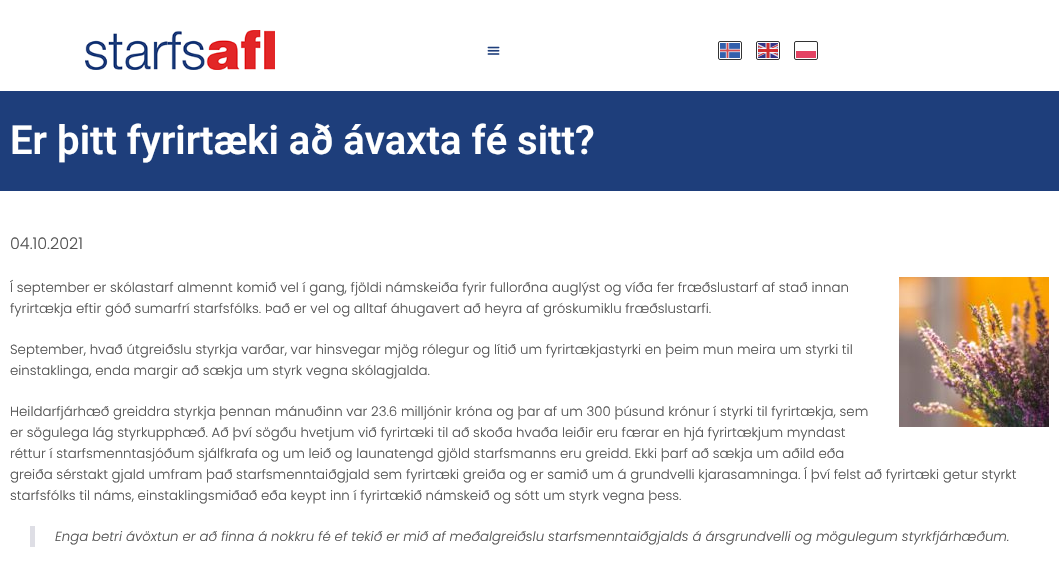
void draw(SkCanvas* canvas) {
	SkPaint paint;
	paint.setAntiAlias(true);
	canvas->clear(0xffffffff);
	canvas->drawImageRect(SkImages::DeferredFromEncodedData(SkData::MakeFromFileName("img1.png")), SkRect::MakeXYWH(85, 30, 190, 40), SkSamplingOptions());
	canvas->drawImageRect(SkImages::DeferredFromEncodedData(SkData::MakeFromFileName("img2.png")), SkRect::MakeXYWH(487, 46, 13, 9), SkSamplingOptions());
	paint.setStroke(true);
	paint.setStrokeWidth(1);
	paint.setColor(0xff333333);
	canvas->drawRoundRect(SkRect::MakeXYWH(718.5, 41.5, 23, 18), 1.5, 1.5, paint);
	canvas->drawImageRect(SkImages::DeferredFromEncodedData(SkData::MakeFromFileName("img3.png")), SkRect::MakeXYWH(720, 43, 20, 15), SkSamplingOptions());
	canvas->drawRoundRect(SkRect::MakeXYWH(756.5, 41.5, 23, 18), 1.5, 1.5, paint);
	canvas->drawImageRect(SkImages::DeferredFromEncodedData(SkData::MakeFromFileName("img4.png")), SkRect::MakeXYWH(758, 43, 20, 15), SkSamplingOptions());
	canvas->drawRoundRect(SkRect::MakeXYWH(794.5, 41.5, 23, 18), 1.5, 1.5, paint);
	paint.setStroke(false);
	paint.setColor(0xffe34363);
	canvas->drawRect(SkRect::MakeXYWH(796, 51, 20, 7), paint);
	paint.setColor(0xff1e3e7b);
	canvas->drawRect(SkRect::MakeXYWH(0, 91, 1059, 100), paint);
	SkFont f1(fontMgr->matchFamilyStyle("Roboto", SkFontStyle(600, SkFontStyle::kNormal_Width, SkFontStyle::kUpright_Slant)), 40);
	f1.setSubpixel(true);
	paint.setColor(0xffffffff);
	canvas->drawString("Er þitt fyrirtæki að ávaxta fé sitt?", 10, 154, f1, paint);
	SkFont f2(fontMgr->matchFamilyStyle("Poppins", SkFontStyle(300, SkFontStyle::kNormal_Width, SkFontStyle::kUpright_Slant)), 16);
	f2.setSubpixel(true);
	paint.setColor(0xff555555);
	canvas->drawString("04.10.2021", 10, 249, f2, paint);
	SkFont f3(fontMgr->matchFamilyStyle("Poppins", SkFontStyle(300, SkFontStyle::kNormal_Width, SkFontStyle::kUpright_Slant)), 13.33);
	f3.setSubpixel(true);
	canvas->drawString("Í september er skólastarf almennt komið vel í gang, fjöldi námskeiða fyrir fullorðna auglýst og víða fer fræðslustarf af stað innan", 10, 292, f3, paint);
	canvas->drawImageRect(SkImages::DeferredFromEncodedData(SkData::MakeFromFileName("img5.png")), SkRect::MakeXYWH(899, 277, 150, 150), SkSamplingOptions());
	canvas->drawString("fyrirtækja eftir góð sumarfrí starfsfólks. Það er vel og alltaf áhugavert að heyra af gróskumiklu fræðslustarfi.", 10, 313, f3, paint);
	canvas->drawString("September, hvað útgreiðslu styrkja varðar, var hinsvegar mjög rólegur og lítið um fyrirtækjastyrki en þeim mun meira um styrki til", 10, 354, f3, paint);
	canvas->drawString("einstaklinga, enda margir að sækja um styrk vegna skólagjalda.", 10, 375, f3, paint);
	canvas->drawString("Heildarfjárhæð greiddra styrkja þennan mánuðinn var 23.6 milljónir króna og þar af um 300 þúsund krónur í styrki til fyrirtækja, sem", 10, 416, f3, paint);
	canvas->drawString("er sögulega lág styrkupphæð. Að því sögðu hvetjum við fyrirtæki til að skoða hvaða leiðir eru færar en hjá fyrirtækjum myndast", 10, 437, f3, paint);
	canvas->drawString("réttur í starfsmenntasjóðum sjálfkrafa og um leið og launatengd gjöld starfsmanns eru greidd. Ekki þarf að sækja um aðild eða", 10, 458, f3, paint);
	canvas->drawString("greiða sérstakt gjald umfram það starfsmenntaiðgjald sem fyrirtæki greiða og er samið um á grundvelli kjarasamninga. Í því felst að fyrirtæki getur styrkt", 10, 479, f3, paint);
	canvas->drawString("starfsfólks til náms, einstaklingsmiðað eða keypt inn í fyrirtækið námskeið og sótt um styrk vegna þess.", 10, 500, f3, paint);
	paint.setColor(0xffdedee5);
	canvas->drawRect(SkRect::MakeXYWH(30, 526, 5, 21), paint);
	SkFont f4(fontMgr->matchFamilyStyle("Poppins", SkFontStyle(300, SkFontStyle::kNormal_Width, SkFontStyle::kItalic_Slant)), 13.33);
	f4.setSubpixel(true);
	paint.setColor(0xff555555);
	canvas->drawString("Enga betri ávöxtun er að finna á nokkru fé ef tekið er mið af meðalgreiðslu starfsmenntaiðgjalds á ársgrundvelli og mögulegum styrkfjárhæðum.", 55, 541, f4, paint);
}
